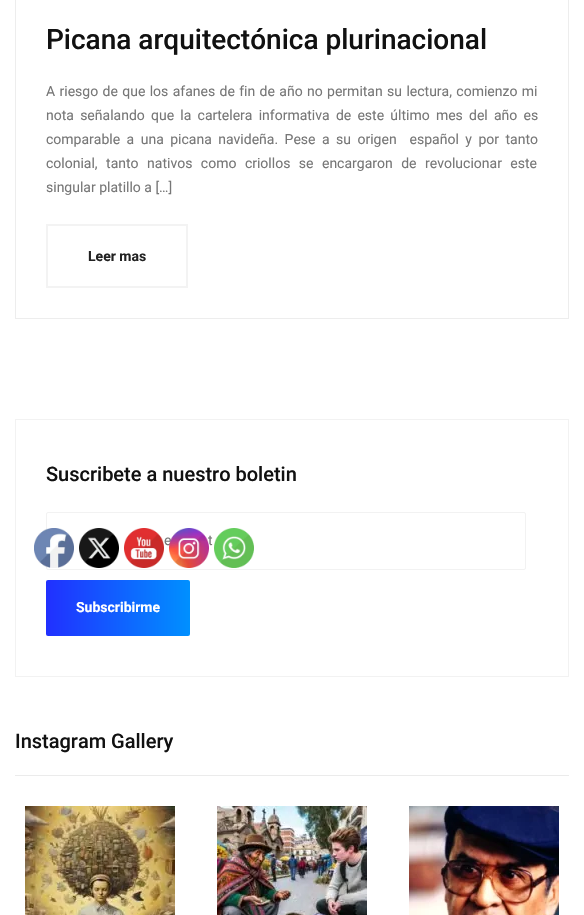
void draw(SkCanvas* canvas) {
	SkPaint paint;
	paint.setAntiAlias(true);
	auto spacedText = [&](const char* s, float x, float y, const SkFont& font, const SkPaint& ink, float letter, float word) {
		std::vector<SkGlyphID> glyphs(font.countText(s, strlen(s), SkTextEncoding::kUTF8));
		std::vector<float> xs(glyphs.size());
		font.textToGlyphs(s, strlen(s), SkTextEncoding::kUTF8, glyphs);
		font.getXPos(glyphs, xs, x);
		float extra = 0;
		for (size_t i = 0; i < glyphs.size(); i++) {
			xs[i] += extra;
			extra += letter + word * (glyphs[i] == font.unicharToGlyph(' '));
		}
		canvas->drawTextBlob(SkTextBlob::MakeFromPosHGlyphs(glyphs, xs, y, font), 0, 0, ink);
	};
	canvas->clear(0xffffffff);
	paint.setStroke(true);
	paint.setStrokeWidth(1);
	paint.setColor(0xffededed);
	canvas->drawRect(SkRect::MakeXYWH(15.5, -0.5, 553, 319), paint);
	SkFont f1(fontMgr->matchFamilyStyle("Roboto", SkFontStyle(500, SkFontStyle::kNormal_Width, SkFontStyle::kUpright_Slant)), 28);
	f1.setSubpixel(true);
	paint.setStroke(false);
	paint.setColor(0xff111111);
	canvas->drawString("Picana arquitectónica plurinacional", 46, 49, f1, paint);
	SkFont f2(fontMgr->matchFamilyStyle("Roboto", SkFontStyle::Normal()), 14);
	f2.setSubpixel(true);
	paint.setColor(0xff777777);
	spacedText("A riesgo de que los afanes de fin de año no permitan su lectura, comienzo mi", 46, 96, f2, paint, 0, 0.9);
	spacedText("nota señalando que la cartelera informativa de este último mes del año es", 46, 120, f2, paint, 0, 2.75);
	spacedText("comparable a una picana navideña. Pese a su origen  español y por tanto", 46, 144, f2, paint, 0, 3);
	spacedText("colonial, tanto nativos como criollos se encargaron de revolucionar este", 46, 168, f2, paint, 0, 5);
	canvas->drawString("singular platillo a […]", 46, 192, f2, paint);
	paint.setStroke(true);
	paint.setStrokeWidth(2);
	paint.setColor(0xfff3f3f3);
	canvas->drawRect(SkRect::MakeXYWH(47, 225, 140, 62), paint);
	SkFont f3(fontMgr->matchFamilyStyle("Roboto", SkFontStyle::Bold()), 14);
	f3.setSubpixel(true);
	paint.setStroke(false);
	paint.setColor(0xff222222);
	canvas->drawString("Leer mas", 88, 261, f3, paint);
	paint.setStroke(true);
	paint.setStrokeWidth(1);
	paint.setColor(0xfff2f2f2);
	canvas->drawRect(SkRect::MakeXYWH(15.5, 419.5, 553, 257), paint);
	SkFont f4(fontMgr->matchFamilyStyle("Roboto", SkFontStyle(500, SkFontStyle::kNormal_Width, SkFontStyle::kUpright_Slant)), 20);
	f4.setSubpixel(true);
	paint.setStroke(false);
	paint.setColor(0xff111111);
	canvas->drawString("Suscribete a nuestro boletin", 46, 481, f4, paint);
	paint.setStroke(true);
	paint.setColor(0xfff2f2f2);
	canvas->drawRoundRect(SkRect::MakeXYWH(46.5, 512.5, 479, 57), 1.5, 1.5, paint);
	paint.setStroke(false);
	paint.setColor(0xff777777);
	canvas->drawString("e", 164, 545, f2, paint);
	canvas->drawString("t", 208, 545, f2, paint);
	{
		const SkColor colors[] = {0xff2130ff, 0xff0090ff};
		const float stops[] = {0, 1};
		const SkPoint ends[] = {{46, 608}, {190, 608}};
		paint.setShader(SkGradientShader::MakeLinear(ends, colors, stops, 2, SkTileMode::kClamp));
		paint.setAlpha(255);
	}
	canvas->drawRoundRect(SkRect::MakeXYWH(46, 580, 144, 56), 2, 2, paint);
	paint.setShader(nullptr);
	paint.setColor(0xffffffff);
	canvas->drawString("Subscribirme", 76, 612, f3, paint);
	paint.setColor(0xffebebeb);
	canvas->drawRect(SkRect::MakeXYWH(15, 775, 554, 1), paint);
	paint.setColor(0xff111111);
	canvas->drawString("Instagram Gallery", 15, 748, f4, paint);
	canvas->drawImageRect(SkImages::DeferredFromEncodedData(SkData::MakeFromFileName("img1.png")), SkRect::MakeXYWH(25, 806, 150, 109), SkSamplingOptions());
	canvas->drawImageRect(SkImages::DeferredFromEncodedData(SkData::MakeFromFileName("img2.png")), SkRect::MakeXYWH(217, 806, 150, 109), SkSamplingOptions());
	canvas->drawImageRect(SkImages::DeferredFromEncodedData(SkData::MakeFromFileName("img3.png")), SkRect::MakeXYWH(409, 806, 150, 109), SkSamplingOptions());
	canvas->drawImageRect(SkImages::DeferredFromEncodedData(SkData::MakeFromFileName("img4.png")), SkRect::MakeXYWH(34, 528, 40, 40), SkSamplingOptions());
	canvas->drawImageRect(SkImages::DeferredFromEncodedData(SkData::MakeFromFileName("img5.png")), SkRect::MakeXYWH(79, 528, 40, 40), SkSamplingOptions());
	canvas->drawImageRect(SkImages::DeferredFromEncodedData(SkData::MakeFromFileName("img6.png")), SkRect::MakeXYWH(124, 528, 40, 40), SkSamplingOptions());
	canvas->drawImageRect(SkImages::DeferredFromEncodedData(SkData::MakeFromFileName("img7.png")), SkRect::MakeXYWH(169, 528, 40, 40), SkSamplingOptions());
	canvas->drawImageRect(SkImages::DeferredFromEncodedData(SkData::MakeFromFileName("img8.png")), SkRect::MakeXYWH(214, 528, 40, 40), SkSamplingOptions());
}
